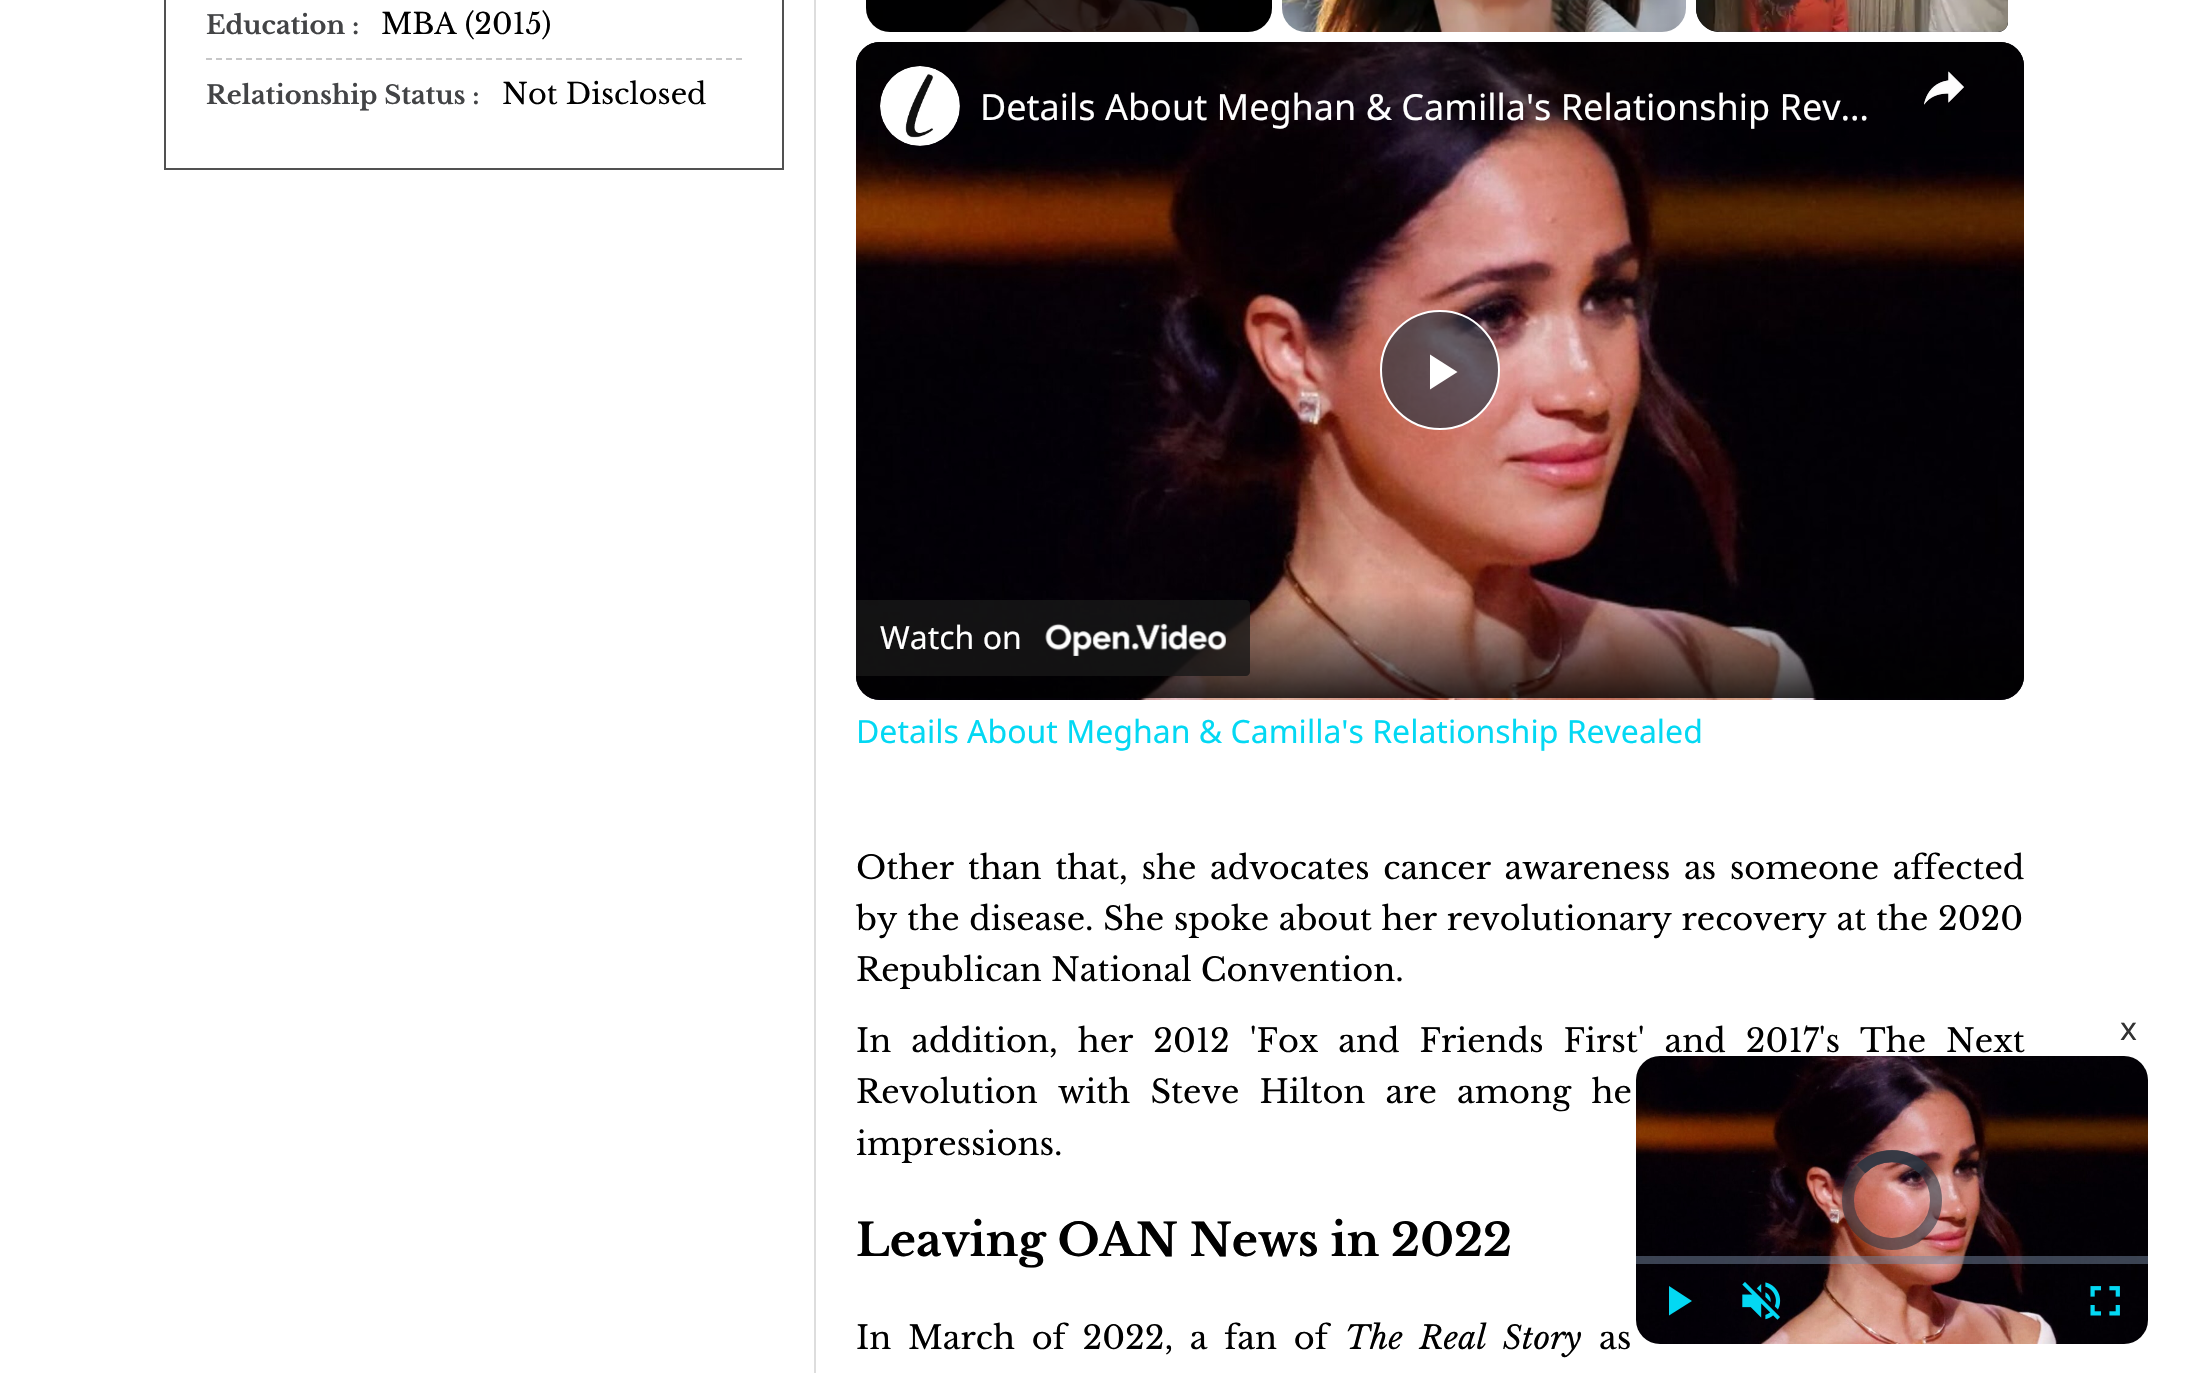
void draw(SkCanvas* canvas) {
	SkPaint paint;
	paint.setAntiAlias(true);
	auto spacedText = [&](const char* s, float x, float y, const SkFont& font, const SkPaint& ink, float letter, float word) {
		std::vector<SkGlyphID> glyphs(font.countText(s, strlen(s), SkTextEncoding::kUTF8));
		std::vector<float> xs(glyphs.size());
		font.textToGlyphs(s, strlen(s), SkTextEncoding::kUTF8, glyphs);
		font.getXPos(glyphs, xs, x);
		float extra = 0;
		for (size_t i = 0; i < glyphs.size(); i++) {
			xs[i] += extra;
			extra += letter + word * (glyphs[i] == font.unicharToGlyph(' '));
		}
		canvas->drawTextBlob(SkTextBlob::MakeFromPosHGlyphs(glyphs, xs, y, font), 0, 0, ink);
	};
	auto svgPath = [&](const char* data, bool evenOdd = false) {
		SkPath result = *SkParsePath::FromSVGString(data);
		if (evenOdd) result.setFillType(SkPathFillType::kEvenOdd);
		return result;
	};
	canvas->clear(0xffffffff);
	paint.setStroke(true);
	paint.setStrokeWidth(2);
	paint.setColor(0xff515151);
	canvas->drawRect(SkRect::MakeXYWH(165, -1, 618, 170), paint);
	SkFont f1(fontMgr->matchFamilyStyle("Libre Baskerville", SkFontStyle::Bold()), 25.6);
	f1.setSubpixel(true);
	paint.setStroke(false);
	paint.setColor(0xff434446);
	canvas->drawString("Education :", 206, 34, f1, paint);
	SkFont f2(fontMgr->matchFamilyStyle("Libre Baskerville", SkFontStyle::Normal()), 28.75);
	f2.setSubpixel(true);
	paint.setColor(0xff000000);
	canvas->drawString("MBA (2015)", 381, 34, f2, paint);
	paint.setStroke(true);
	paint.setColor(0xffc7c7c8);
	paint.setPathEffect(SkDashPathEffect::Make({{6, 4}}, 0));
	canvas->drawPath(svgPath("M206 59H742"), paint);
	paint.setPathEffect(nullptr);
	paint.setStroke(false);
	paint.setColor(0xff434446);
	canvas->drawString("Relationship Status :", 206, 104, f1, paint);
	paint.setColor(0xff000000);
	canvas->drawString("Not Disclosed", 502, 104, f2, paint);
	paint.setColor(0xffdddddd);
	canvas->drawRect(SkRect::MakeXYWH(814, 0, 2, 1373), paint);
	canvas->drawImageRect(SkImages::DeferredFromEncodedData(SkData::MakeFromFileName("img1.png")), SkRect::MakeXYWH(856, 42, 1168, 658), SkSamplingOptions());
	canvas->drawImageRect(SkImages::DeferredFromEncodedData(SkData::MakeFromFileName("img2.png")), SkRect::MakeXYWH(856, 42, 1168, 658), SkSamplingOptions());
	paint.setColor(0xb32b333f);
	canvas->drawCircle(1440, 370, 59, paint);
	paint.setStroke(true);
	paint.setColor(0xffffffff);
	canvas->drawCircle(1440, 370, 59, paint);
	paint.setStroke(false);
	canvas->drawPath(svgPath("M1430 354.5V389.5L1457.5 372Z"), paint);
	{
		const SkColor colors[] = {0x99000000, 0x00000000, 0x00000000, 0xcc000000};
		const float stops[] = {0, 0.16, 0.84, 1};
		const SkPoint ends[] = {{1440, 42}, {1440, 698}};
		paint.setShader(SkGradientShader::MakeLinear(ends, colors, stops, 4, SkTileMode::kClamp));
		paint.setAlpha(255);
	}
	canvas->drawRoundRect(SkRect::MakeXYWH(856, 42, 1168, 656), 24, 24, paint);
	canvas->drawImageRect(SkImages::DeferredFromEncodedData(SkData::MakeFromFileName("img3.png")), SkRect::MakeXYWH(880, 66, 80, 80), SkSamplingOptions());
	canvas->drawImageRect(SkImages::DeferredFromEncodedData(SkData::MakeFromFileName("img4.png")), SkRect::MakeXYWH(1924, 71, 40, 34), SkSamplingOptions());
	SkFont f3(fontMgr->matchFamilyStyle("Noto Sans", SkFontStyle::Normal()), 36);
	f3.setSubpixel(true);
	paint.setShader(nullptr);
	paint.setColor(0xffffffff);
	canvas->drawString("Details About Meghan & Camilla's Relationship Rev…", 980, 120, f3, paint);
	paint.setColor(0xcc171717);
	canvas->drawPath(svgPath("M856 600H1246C1248 600 1250 602 1250 604V672C1250 674 1248 676 1246 676H856Z"), paint);
	SkFont f4(fontMgr->matchFamilyStyle("Noto Sans", SkFontStyle::Normal()), 32);
	f4.setSubpixel(true);
	paint.setColor(0xffffffff);
	canvas->drawString("Watch on", 880, 649, f4, paint);
	canvas->drawImageRect(SkImages::DeferredFromEncodedData(SkData::MakeFromFileName("img5.png")), SkRect::MakeXYWH(1045, 623, 181, 33), SkSamplingOptions());
	paint.setColor(0xff000000);
	canvas->drawRoundRect(SkRect::MakeXYWH(866, -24, 406, 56), 24, 24, paint);
	canvas->drawImageRect(SkImages::DeferredFromEncodedData(SkData::MakeFromFileName("img6.png")), SkRect::MakeXYWH(866, 0, 406, 32), SkSamplingOptions());
	canvas->drawImageRect(SkImages::DeferredFromEncodedData(SkData::MakeFromFileName("img7.png")), SkRect::MakeXYWH(1282, 0, 404, 32), SkSamplingOptions());
	canvas->drawPath(svgPath("M1720-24H1998C2003.5-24 2008-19.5 2008-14V22C2008 27.5 2003.5 32 1998 32H1720C1706.5 32 1696 21.5 1696 8V0C1696-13.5 1706.5-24 1720-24Z"), paint);
	canvas->drawImageRect(SkImages::DeferredFromEncodedData(SkData::MakeFromFileName("img8.png")), SkRect::MakeXYWH(1696, 0, 312, 32), SkSamplingOptions());
	paint.setColor(0xff333333);
	canvas->drawString("x", 2120, 1040, f4, paint);
	SkFont f5(fontMgr->matchFamilyStyle("Libre Baskerville", SkFontStyle::Normal()), 32);
	f5.setSubpixel(true);
	paint.setColor(0xff000000);
	spacedText("In addition, her 2012 'Fox and Friends First' and 2017's The Next", 856, 1052, f5, paint, 0, 10.75);
	canvas->drawImageRect(SkImages::DeferredFromEncodedData(SkData::MakeFromFileName("img9.png")), SkRect::MakeXYWH(1636, 1056, 512, 288), SkSamplingOptions());
	paint.setStroke(true);
	paint.setStrokeWidth(12);
	paint.setColor(0x962b333f);
	canvas->drawCircle(1892, 1200, 44, paint);
	canvas->drawPath(svgPath("M1861 1169C1878 1152 1906 1152 1923 1169"), paint);
	canvas->drawPath(svgPath("M1861 1169C1878 1152 1906 1152 1923 1169"), paint);
	paint.setStroke(false);
	paint.setColor(0x8073859f);
	canvas->drawRect(SkRect::MakeXYWH(1636, 1256, 512, 8), paint);
	paint.setColor(0xff03d8f3);
	canvas->drawPath(svgPath("M1669 1286V1315.5L1692 1301Z"), paint);
	canvas->drawImageRect(SkImages::DeferredFromEncodedData(SkData::MakeFromFileName("img10.png")), SkRect::MakeXYWH(1742, 1282, 39, 38), SkSamplingOptions());
	canvas->drawImageRect(SkImages::DeferredFromEncodedData(SkData::MakeFromFileName("img11.png")), SkRect::MakeXYWH(2090, 1286, 30, 30), SkSamplingOptions());
	canvas->drawString("Details About Meghan & Camilla's Relationship Revealed", 856, 743, f4, paint);
	paint.setColor(0xff000000);
	spacedText("Other than that, she advocates cancer awareness as someone affected", 856, 879, f5, paint, 0, 4.5);
	spacedText("by the disease. She spoke about her revolutionary recovery at the 2020", 856, 930, f5, paint, 0, 0.5);
	canvas->drawString("Republican National Convention.", 856, 981, f5, paint);
	spacedText("Revolution with Steve Hilton are among he", 856, 1103, f5, paint, 0, 11);
	canvas->drawString("impressions.", 856, 1155, f5, paint);
	SkFont f6(fontMgr->matchFamilyStyle("Libre Baskerville", SkFontStyle::Bold()), 44.75);
	f6.setSubpixel(true);
	canvas->drawString("Leaving OAN News in 2022", 856, 1256, f6, paint);
	spacedText("In March of 2022, a fan of", 856, 1349, f5, paint, 0, 7.5);
	SkFont f7(fontMgr->matchFamilyStyle("Libre Baskerville", SkFontStyle::Italic()), 32);
	f7.setSubpixel(true);
	spacedText("The Real Story", 1345, 1349, f7, paint, 0, 7.5);
	spacedText("as", 1599, 1349, f5, paint, 0, 7.5);
}
